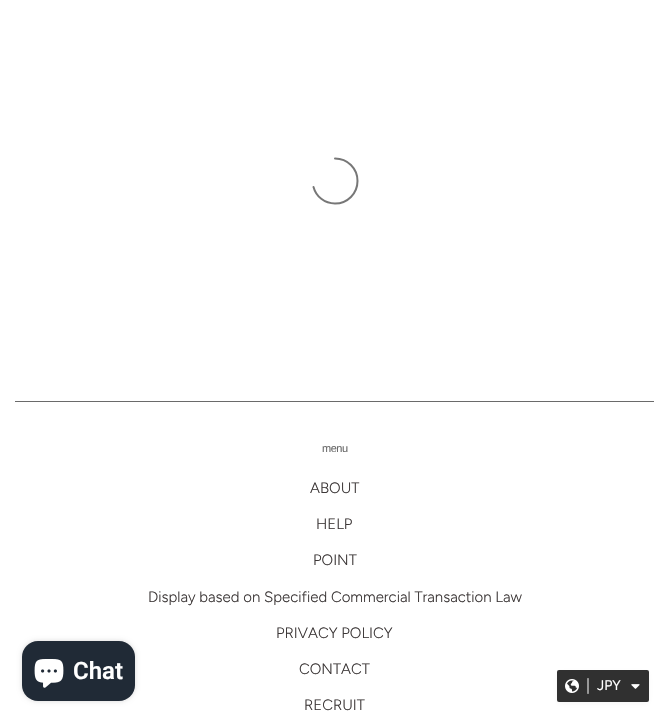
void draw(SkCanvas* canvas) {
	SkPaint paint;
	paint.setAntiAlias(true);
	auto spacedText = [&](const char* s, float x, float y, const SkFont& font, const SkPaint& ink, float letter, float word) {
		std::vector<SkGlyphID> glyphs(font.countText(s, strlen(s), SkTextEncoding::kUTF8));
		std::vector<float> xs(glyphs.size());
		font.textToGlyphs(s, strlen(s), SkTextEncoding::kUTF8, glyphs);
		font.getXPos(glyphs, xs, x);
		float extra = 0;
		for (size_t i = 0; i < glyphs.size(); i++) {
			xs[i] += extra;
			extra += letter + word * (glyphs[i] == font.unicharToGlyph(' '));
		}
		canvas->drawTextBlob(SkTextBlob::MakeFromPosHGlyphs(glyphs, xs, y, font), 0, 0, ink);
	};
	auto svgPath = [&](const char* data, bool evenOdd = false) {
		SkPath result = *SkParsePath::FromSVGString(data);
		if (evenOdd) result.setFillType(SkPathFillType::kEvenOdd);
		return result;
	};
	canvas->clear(0xffffffff);
	paint.setStroke(true);
	paint.setStrokeWidth(2);
	paint.setStrokeCap(SkPaint::kRound_Cap);
	paint.setColor(0xff777777);
	canvas->drawPath(svgPath("M335 158.5C347.5 158.5 357.5 168.5 357.5 181C357.5 193.5 347.5 203.5 335 203.5C324.5 203.5 316 196.5 313.5 187"), paint);
	paint.setStroke(false);
	paint.setColor(0x26000000);
	paint.setMaskFilter(SkMaskFilter::MakeBlur(kNormal_SkBlurStyle, 2.5));
	canvas->drawRoundRect(SkRect::MakeXYWH(22, 641, 113, 60), 16, 16, paint);
	paint.setMaskFilter(nullptr);
	paint.setColor(0xff202a36);
	canvas->drawRoundRect(SkRect::MakeXYWH(22, 641, 113, 60), 16, 16, paint);
	canvas->drawImageRect(SkImages::DeferredFromEncodedData(SkData::MakeFromFileName("img1.png")), SkRect::MakeXYWH(34, 659, 30, 29), SkSamplingOptions());
	SkFont f1(fontMgr->matchFamilyStyle("Roboto", SkFontStyle(600, SkFontStyle::kNormal_Width, SkFontStyle::kUpright_Slant)), 24);
	f1.setSubpixel(true);
	paint.setColor(0xffffffff);
	canvas->drawString("Chat", 73, 679, f1, paint);
	paint.setColor(0xff6a6a6a);
	canvas->drawRect(SkRect::MakeXYWH(15, 401, 639, 1), paint);
	SkFont f2(fontMgr->matchFamilyStyle("Liberation Sans", SkFontStyle::Normal()), 11);
	f2.setSubpixel(true);
	spacedText("menu", 322, 452, f2, paint, -0.5, 0);
	SkFont f3(fontMgr->matchFamilyStyle("Figtree", SkFontStyle(300, SkFontStyle::kNormal_Width, SkFontStyle::kUpright_Slant)), 15);
	f3.setSubpixel(true);
	paint.setColor(0xff3d3838);
	canvas->drawString("ABOUT", 310, 493, f3, paint);
	canvas->drawString("HELP", 316, 529, f3, paint);
	canvas->drawString("POINT", 313, 565, f3, paint);
	canvas->drawString("Display based on Specified Commercial Transaction Law", 148, 602, f3, paint);
	canvas->drawString("PRIVACY POLICY", 276, 638, f3, paint);
	canvas->drawString("CONTACT", 299, 674, f3, paint);
	canvas->drawString("RECRUIT", 304, 710, f3, paint);
	paint.setColor(0x0d0d0d0d);
	paint.setMaskFilter(SkMaskFilter::MakeBlur(kNormal_SkBlurStyle, 3));
	canvas->drawRoundRect(SkRect::MakeXYWH(558, 673, 90, 30), 1, 1, paint);
	paint.setMaskFilter(nullptr);
	paint.setColor(0xff303030);
	canvas->drawRoundRect(SkRect::MakeXYWH(557, 670, 92, 32), 2, 2, paint);
	canvas->drawImageRect(SkImages::DeferredFromEncodedData(SkData::MakeFromFileName("img2.png")), SkRect::MakeXYWH(565, 679, 14, 14), SkSamplingOptions());
	canvas->drawImageRect(SkImages::DeferredFromEncodedData(SkData::MakeFromFileName("img3.png")), SkRect::MakeXYWH(587, 678, 2, 16), SkSamplingOptions());
	SkFont f4(fontMgr->matchFamilyStyle("Figtree", SkFontStyle::Normal()), 14);
	f4.setSubpixel(true);
	paint.setColor(0xffffffff);
	canvas->drawString("JPY", 597, 690, f4, paint);
	canvas->drawImageRect(SkImages::DeferredFromEncodedData(SkData::MakeFromFileName("img4.png")), SkRect::MakeXYWH(631, 684, 9, 5), SkSamplingOptions());
}
